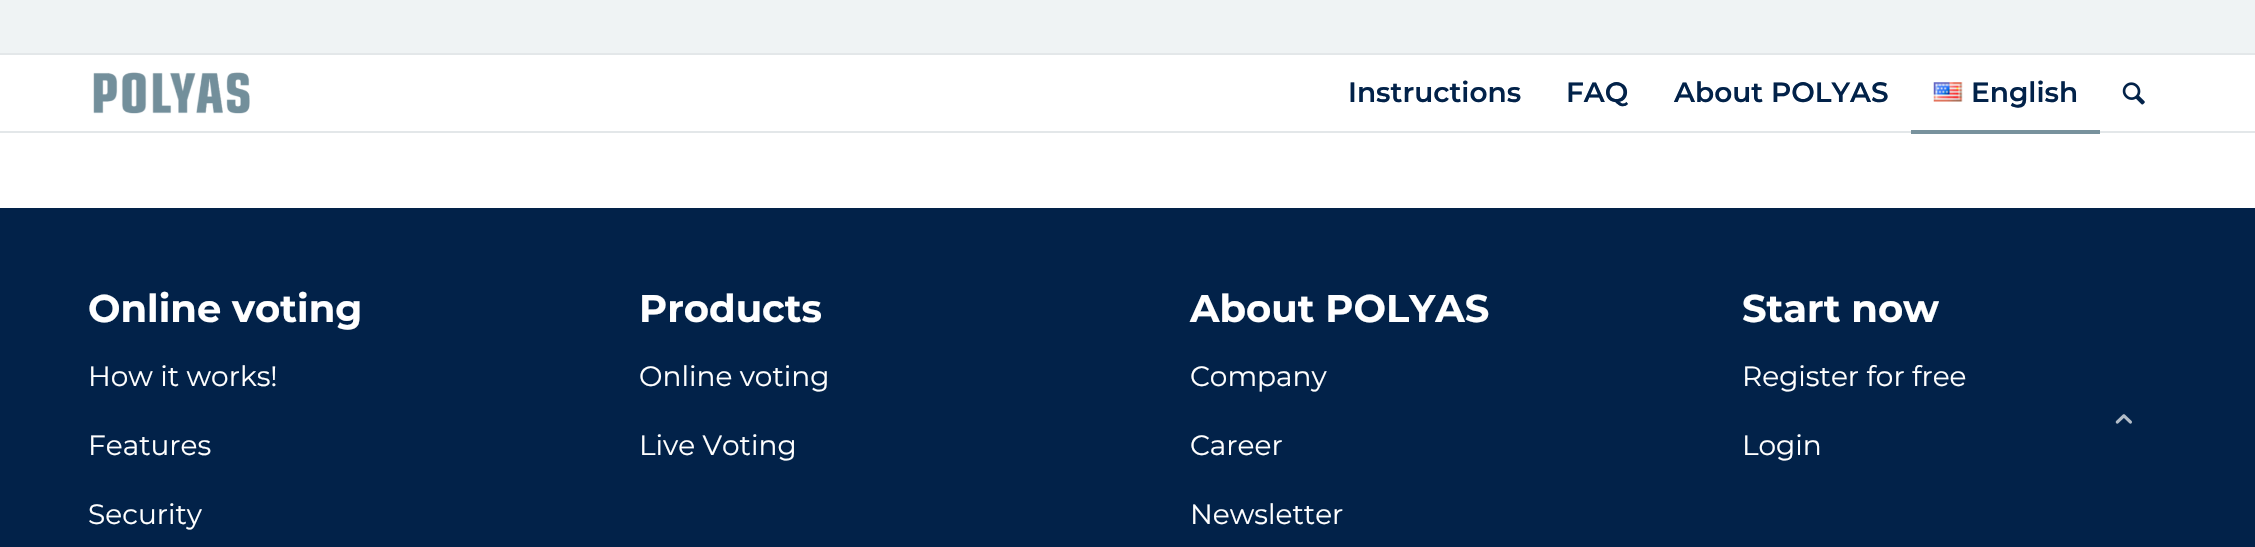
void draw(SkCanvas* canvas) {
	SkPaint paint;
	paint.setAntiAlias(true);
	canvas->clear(0xffffffff);
	paint.setColor(0xffeff3f4);
	canvas->drawRect(SkRect::MakeXYWH(0, 0, 2255, 53), paint);
	paint.setColor(0xffe3e7e9);
	canvas->drawRect(SkRect::MakeXYWH(0, 53, 2255, 2), paint);
	canvas->drawRect(SkRect::MakeXYWH(0, 131, 2255, 2), paint);
	canvas->drawImageRect(SkImages::DeferredFromEncodedData(SkData::MakeFromFileName("img1.png")), SkRect::MakeXYWH(93, 72, 157, 42), SkSamplingOptions());
	SkFont f1(fontMgr->matchFamilyStyle("Montserrat", SkFontStyle(600, SkFontStyle::kNormal_Width, SkFontStyle::kUpright_Slant)), 28);
	f1.setSubpixel(true);
	paint.setColor(0xff022249);
	canvas->drawString("Instructions", 1348, 102, f1, paint);
	canvas->drawString("FAQ", 1566, 102, f1, paint);
	canvas->drawString("About POLYAS", 1674, 102, f1, paint);
	canvas->drawImageRect(SkImages::DeferredFromEncodedData(SkData::MakeFromFileName("img2.png")), SkRect::MakeXYWH(1933, 82, 30, 20), SkSamplingOptions());
	canvas->drawString("English", 1971, 102, f1, paint);
	paint.setColor(0xff78929d);
	canvas->drawRect(SkRect::MakeXYWH(1911, 130, 189, 4), paint);
	canvas->drawImageRect(SkImages::DeferredFromEncodedData(SkData::MakeFromFileName("img3.png")), SkRect::MakeXYWH(2122, 82, 23, 23), SkSamplingOptions());
	paint.setColor(0xff022249);
	canvas->drawRect(SkRect::MakeXYWH(0, 208, 2255, 339), paint);
	SkFont f2(fontMgr->matchFamilyStyle("Montserrat", SkFontStyle::Bold()), 38.5);
	f2.setSubpixel(true);
	paint.setColor(0xffffffff);
	canvas->drawString("Online voting", 88, 322, f2, paint);
	SkFont f3(fontMgr->matchFamilyStyle("Montserrat", SkFontStyle(100, SkFontStyle::kNormal_Width, SkFontStyle::kUpright_Slant)), 28);
	f3.setSubpixel(true);
	canvas->drawString("How it works!", 88, 386, f3, paint);
	canvas->drawString("Features", 88, 455, f3, paint);
	canvas->drawString("Security", 88, 524, f3, paint);
	canvas->drawString("Products", 639, 322, f2, paint);
	canvas->drawString("Online voting", 639, 386, f3, paint);
	canvas->drawString("Live Voting", 639, 455, f3, paint);
	canvas->drawString("About POLYAS", 1190, 322, f2, paint);
	canvas->drawString("Company", 1190, 386, f3, paint);
	canvas->drawString("Career", 1190, 455, f3, paint);
	canvas->drawString("Newsletter", 1190, 524, f3, paint);
	canvas->drawString("Start now", 1742, 322, f2, paint);
	canvas->drawString("Register for free", 1742, 386, f3, paint);
	canvas->drawString("Login", 1742, 455, f3, paint);
	canvas->drawImageRect(SkImages::DeferredFromEncodedData(SkData::MakeFromFileName("img4.png")), SkRect::MakeXYWH(2115, 414, 17, 10), SkSamplingOptions());
}
